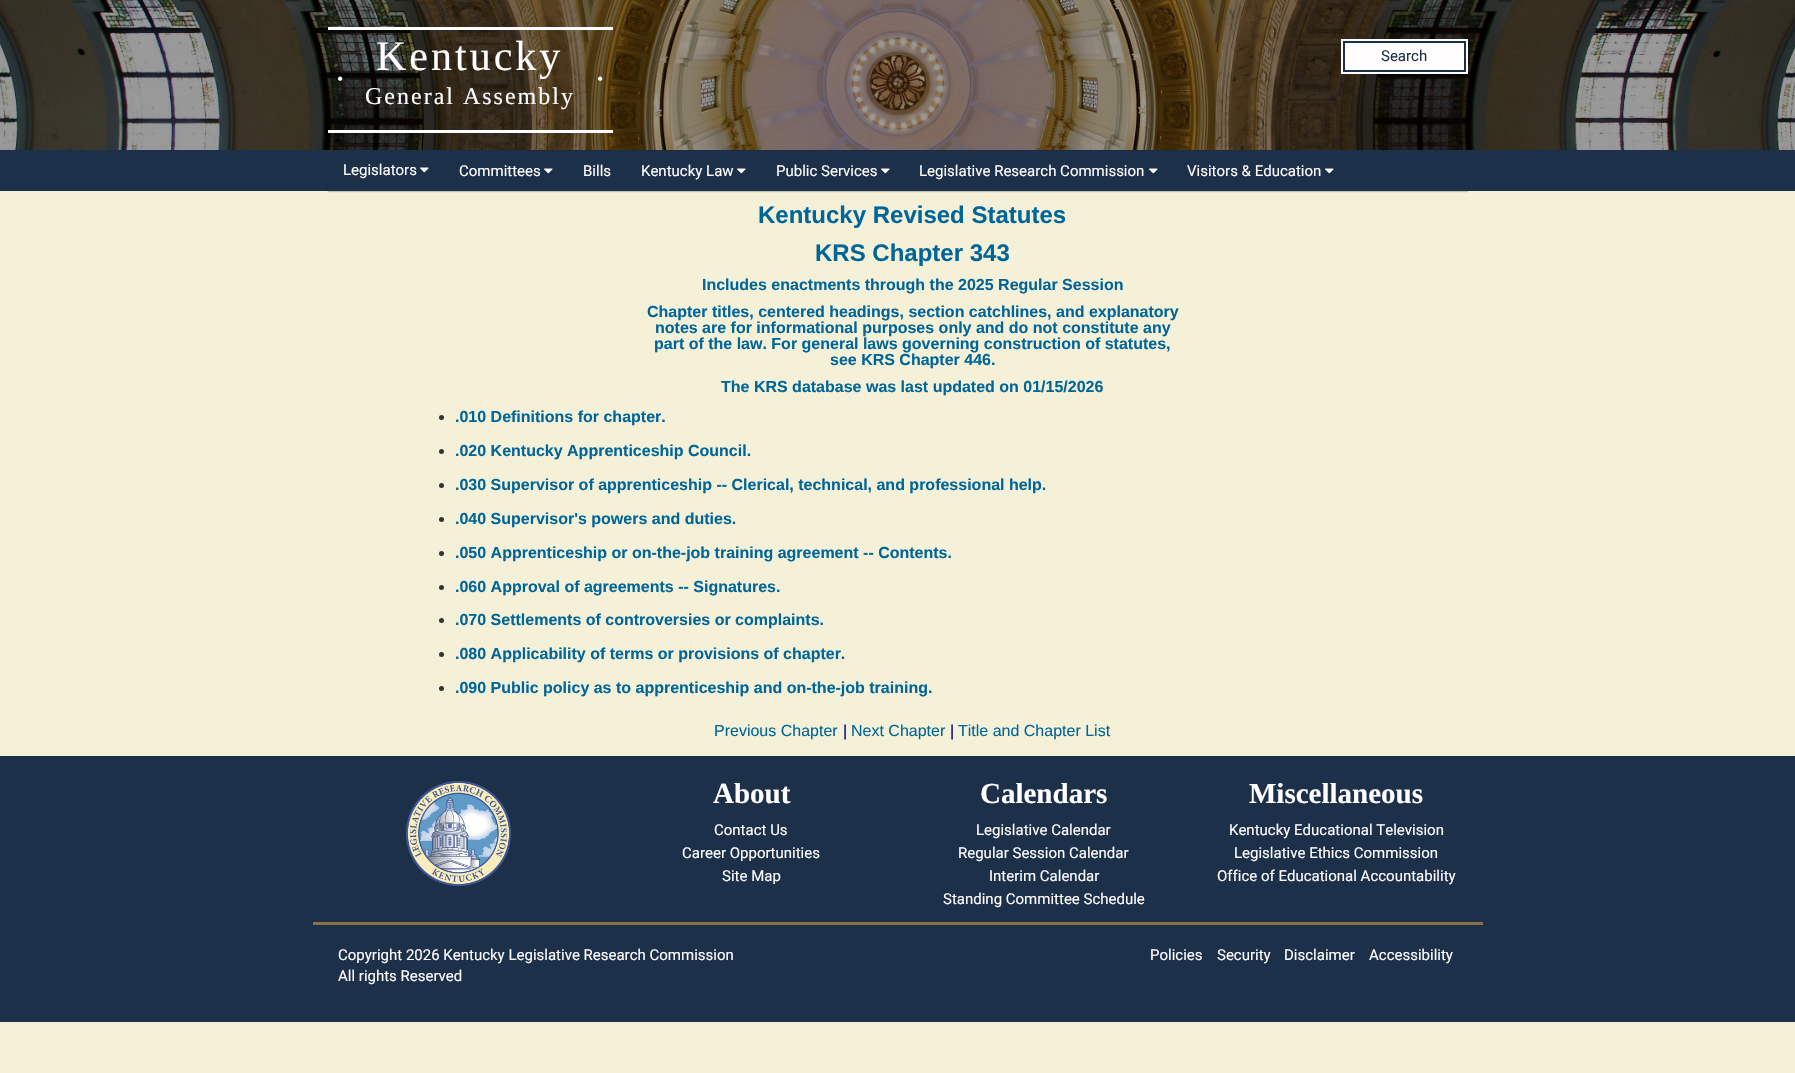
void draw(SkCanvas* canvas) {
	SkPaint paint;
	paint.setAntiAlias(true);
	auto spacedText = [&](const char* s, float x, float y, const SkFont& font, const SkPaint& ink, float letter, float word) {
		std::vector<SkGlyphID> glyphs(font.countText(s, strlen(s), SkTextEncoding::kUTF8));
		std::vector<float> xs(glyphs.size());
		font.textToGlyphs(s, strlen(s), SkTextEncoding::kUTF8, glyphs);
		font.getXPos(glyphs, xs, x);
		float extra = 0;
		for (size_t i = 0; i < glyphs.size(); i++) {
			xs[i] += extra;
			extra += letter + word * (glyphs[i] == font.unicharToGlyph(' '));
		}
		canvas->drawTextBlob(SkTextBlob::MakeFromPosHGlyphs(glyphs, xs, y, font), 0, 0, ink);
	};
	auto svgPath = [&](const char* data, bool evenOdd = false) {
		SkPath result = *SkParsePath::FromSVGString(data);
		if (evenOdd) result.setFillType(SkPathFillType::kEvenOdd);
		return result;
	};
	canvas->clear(0xfff4f1d8);
	canvas->drawImageRect(SkImages::DeferredFromEncodedData(SkData::MakeFromFileName("img1.png")), SkRect::MakeXYWH(0, 0, 1795, 150), SkSamplingOptions());
	paint.setColor(0xfffffdfe);
	canvas->drawRect(SkRect::MakeXYWH(328, 27, 285, 3), paint);
	canvas->drawRect(SkRect::MakeXYWH(328, 130, 285, 3), paint);
	canvas->drawImageRect(SkImages::DeferredFromEncodedData(SkData::MakeFromFileName("img2.png")), SkRect::MakeXYWH(338, 76, 5, 5), SkSamplingOptions());
	SkFont f1(fontMgr->matchFamilyStyle("Liberation Serif", SkFontStyle::Normal()), 42);
	f1.setSubpixel(true);
	spacedText("Kentucky", 376, 70, f1, paint, 3, 0);
	canvas->drawImageRect(SkImages::DeferredFromEncodedData(SkData::MakeFromFileName("img3.png")), SkRect::MakeXYWH(598, 76, 5, 5), SkSamplingOptions());
	SkFont f2(fontMgr->matchFamilyStyle("Liberation Serif", SkFontStyle::Normal()), 24);
	f2.setSubpixel(true);
	spacedText("General Assembly", 365, 104, f2, paint, 2, 0);
	canvas->drawRect(SkRect::MakeXYWH(1341, 39, 127, 35), paint);
	paint.setStroke(true);
	paint.setStrokeWidth(2);
	paint.setColor(0xff1c304a);
	canvas->drawRect(SkRect::MakeXYWH(1344, 42, 121, 29), paint);
	SkFont f3(fontMgr->matchFamilyStyle("Roboto", SkFontStyle::Normal()), 15);
	f3.setSubpixel(true);
	paint.setStroke(false);
	canvas->drawString("Search", 1381, 61, f3, paint);
	canvas->drawRect(SkRect::MakeXYWH(0, 150, 1795, 41), paint);
	canvas->save();
	canvas->clipPath(svgPath("M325 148H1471V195H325ZM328 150H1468V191H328Z", true), true);
	paint.setColor(0x33000000);
	paint.setMaskFilter(SkMaskFilter::MakeBlur(kNormal_SkBlurStyle, 0.5));
	canvas->drawRect(SkRect::MakeXYWH(328, 151, 1140, 41), paint);
	paint.setMaskFilter(nullptr);
	canvas->restore();
	paint.setColor(0xfffffdfe);
	canvas->drawString("Legislators", 343, 175, f3, paint);
	canvas->drawImageRect(SkImages::DeferredFromEncodedData(SkData::MakeFromFileName("img4.png")), SkRect::MakeXYWH(420, 167, 9, 6), SkSamplingOptions());
	paint.setColor(0xff1b2e46);
	canvas->drawRect(SkRect::MakeXYWH(444, 150, 905, 1), paint);
	paint.setColor(0xfffffdfe);
	canvas->drawString("Committees", 459, 176, f3, paint);
	canvas->drawImageRect(SkImages::DeferredFromEncodedData(SkData::MakeFromFileName("img4.png")), SkRect::MakeXYWH(544, 168, 9, 6), SkSamplingOptions());
	canvas->drawString("Bills", 583, 176, f3, paint);
	canvas->drawString("Kentucky Law", 641, 176, f3, paint);
	canvas->drawImageRect(SkImages::DeferredFromEncodedData(SkData::MakeFromFileName("img4.png")), SkRect::MakeXYWH(737, 168, 9, 6), SkSamplingOptions());
	canvas->drawString("Public Services", 776, 176, f3, paint);
	canvas->drawImageRect(SkImages::DeferredFromEncodedData(SkData::MakeFromFileName("img4.png")), SkRect::MakeXYWH(881, 168, 9, 6), SkSamplingOptions());
	canvas->drawString("Legislative Research Commission", 919, 176, f3, paint);
	canvas->drawImageRect(SkImages::DeferredFromEncodedData(SkData::MakeFromFileName("img4.png")), SkRect::MakeXYWH(1149, 168, 9, 6), SkSamplingOptions());
	canvas->drawString("Visitors & Education", 1187, 176, f3, paint);
	canvas->drawImageRect(SkImages::DeferredFromEncodedData(SkData::MakeFromFileName("img4.png")), SkRect::MakeXYWH(1325, 168, 9, 6), SkSamplingOptions());
	SkFont f4(fontMgr->matchFamilyStyle("Liberation Sans", SkFontStyle::Bold()), 24);
	f4.setSubpixel(true);
	paint.setColor(0xff006699);
	canvas->drawString("Kentucky Revised Statutes", 758, 223, f4, paint);
	canvas->drawString("KRS Chapter 343", 815, 261, f4, paint);
	SkFont f5(fontMgr->matchFamilyStyle("Liberation Sans", SkFontStyle::Bold()), 16);
	f5.setSubpixel(true);
	canvas->drawString("Includes enactments through the 2025 Regular Session", 702, 290, f5, paint);
	canvas->drawString("Chapter titles, centered headings, section catchlines, and explanatory", 647, 317, f5, paint);
	canvas->drawString("notes are for informational purposes only and do not constitute any", 655, 333, f5, paint);
	canvas->drawString("part of the law. For general laws governing construction of statutes,", 654, 349, f5, paint);
	canvas->drawString("see KRS Chapter 446.", 830, 365, f5, paint);
	canvas->drawString("The KRS database was last updated on 01/15/2026", 721, 392, f5, paint);
	paint.setColor(0xff333333);
	canvas->drawCircle(441.5, 417.5, 2.5, paint);
	paint.setColor(0xff006699);
	canvas->drawString(".010 Definitions for chapter.", 455, 422, f5, paint);
	paint.setColor(0xff333333);
	canvas->drawCircle(441.5, 451.5, 2.5, paint);
	paint.setColor(0xff006699);
	canvas->drawString(".020 Kentucky Apprenticeship Council.", 455, 456, f5, paint);
	paint.setColor(0xff333333);
	canvas->drawCircle(441.5, 485.5, 2.5, paint);
	paint.setColor(0xff006699);
	canvas->drawString(".030 Supervisor of apprenticeship -- Clerical, technical, and professional help.", 455, 490, f5, paint);
	paint.setColor(0xff333333);
	canvas->drawCircle(441.5, 519.5, 2.5, paint);
	paint.setColor(0xff006699);
	canvas->drawString(".040 Supervisor's powers and duties.", 455, 524, f5, paint);
	paint.setColor(0xff333333);
	canvas->drawCircle(441.5, 553.5, 2.5, paint);
	paint.setColor(0xff006699);
	canvas->drawString(".050 Apprenticeship or on-the-job training agreement -- Contents.", 455, 558, f5, paint);
	paint.setColor(0xff333333);
	canvas->drawCircle(441.5, 587.5, 2.5, paint);
	paint.setColor(0xff006699);
	canvas->drawString(".060 Approval of agreements -- Signatures.", 455, 592, f5, paint);
	paint.setColor(0xff333333);
	canvas->drawCircle(441.5, 620.5, 2.5, paint);
	paint.setColor(0xff006699);
	canvas->drawString(".070 Settlements of controversies or complaints.", 455, 625, f5, paint);
	paint.setColor(0xff333333);
	canvas->drawCircle(441.5, 654.5, 2.5, paint);
	paint.setColor(0xff006699);
	canvas->drawString(".080 Applicability of terms or provisions of chapter.", 455, 659, f5, paint);
	paint.setColor(0xff333333);
	canvas->drawCircle(441.5, 688.5, 2.5, paint);
	paint.setColor(0xff006699);
	canvas->drawString(".090 Public policy as to apprenticeship and on-the-job training.", 455, 693, f5, paint);
	SkFont f6(fontMgr->matchFamilyStyle("Liberation Sans", SkFontStyle::Normal()), 16);
	f6.setSubpixel(true);
	canvas->drawString("Previous Chapter", 714, 736, f6, paint);
	paint.setColor(0xff000080);
	canvas->drawString("|", 843, 736, f6, paint);
	paint.setColor(0xff006699);
	canvas->drawString("Next Chapter", 851, 736, f6, paint);
	paint.setColor(0xff000080);
	canvas->drawString("|", 950, 736, f6, paint);
	paint.setColor(0xff006699);
	canvas->drawString("Title and Chapter List", 958, 736, f6, paint);
	paint.setColor(0xff1c304a);
	canvas->drawRect(SkRect::MakeXYWH(0, 756, 1795, 266), paint);
	canvas->drawImageRect(SkImages::DeferredFromEncodedData(SkData::MakeFromFileName("img5.png")), SkRect::MakeXYWH(406, 781, 105, 105), SkSamplingOptions());
	SkFont f7(fontMgr->matchFamilyStyle("Liberation Serif", SkFontStyle::Bold()), 29);
	f7.setSubpixel(true);
	paint.setColor(0xfffffdfe);
	canvas->drawString("About", 713, 803, f7, paint);
	canvas->drawString("Contact Us", 714, 835, f3, paint);
	canvas->drawString("Career Opportunities", 682, 858, f3, paint);
	canvas->drawString("Site Map", 722, 881, f3, paint);
	canvas->drawString("Calendars", 980, 803, f7, paint);
	canvas->drawString("Legislative Calendar", 976, 835, f3, paint);
	canvas->drawString("Regular Session Calendar", 958, 858, f3, paint);
	canvas->drawString("Interim Calendar", 989, 881, f3, paint);
	canvas->drawString("Standing Committee Schedule", 943, 904, f3, paint);
	canvas->drawString("Miscellaneous", 1249, 803, f7, paint);
	canvas->drawString("Kentucky Educational Television", 1229, 835, f3, paint);
	canvas->drawString("Legislative Ethics Commission", 1234, 858, f3, paint);
	canvas->drawString("Office of Educational Accountability", 1217, 881, f3, paint);
	paint.setColor(0xff897346);
	canvas->drawRect(SkRect::MakeXYWH(313, 922, 1170, 3), paint);
	paint.setColor(0xfffffdfe);
	canvas->drawString("Copyright 2026 Kentucky Legislative Research Commission", 338, 960, f3, paint);
	canvas->drawString("All rights Reserved", 338, 981, f3, paint);
	canvas->drawString("Policies", 1150, 960, f3, paint);
	canvas->drawString("Security", 1217, 960, f3, paint);
	canvas->drawString("Disclaimer", 1284, 960, f3, paint);
	canvas->drawString("Accessibility", 1369, 960, f3, paint);
}
